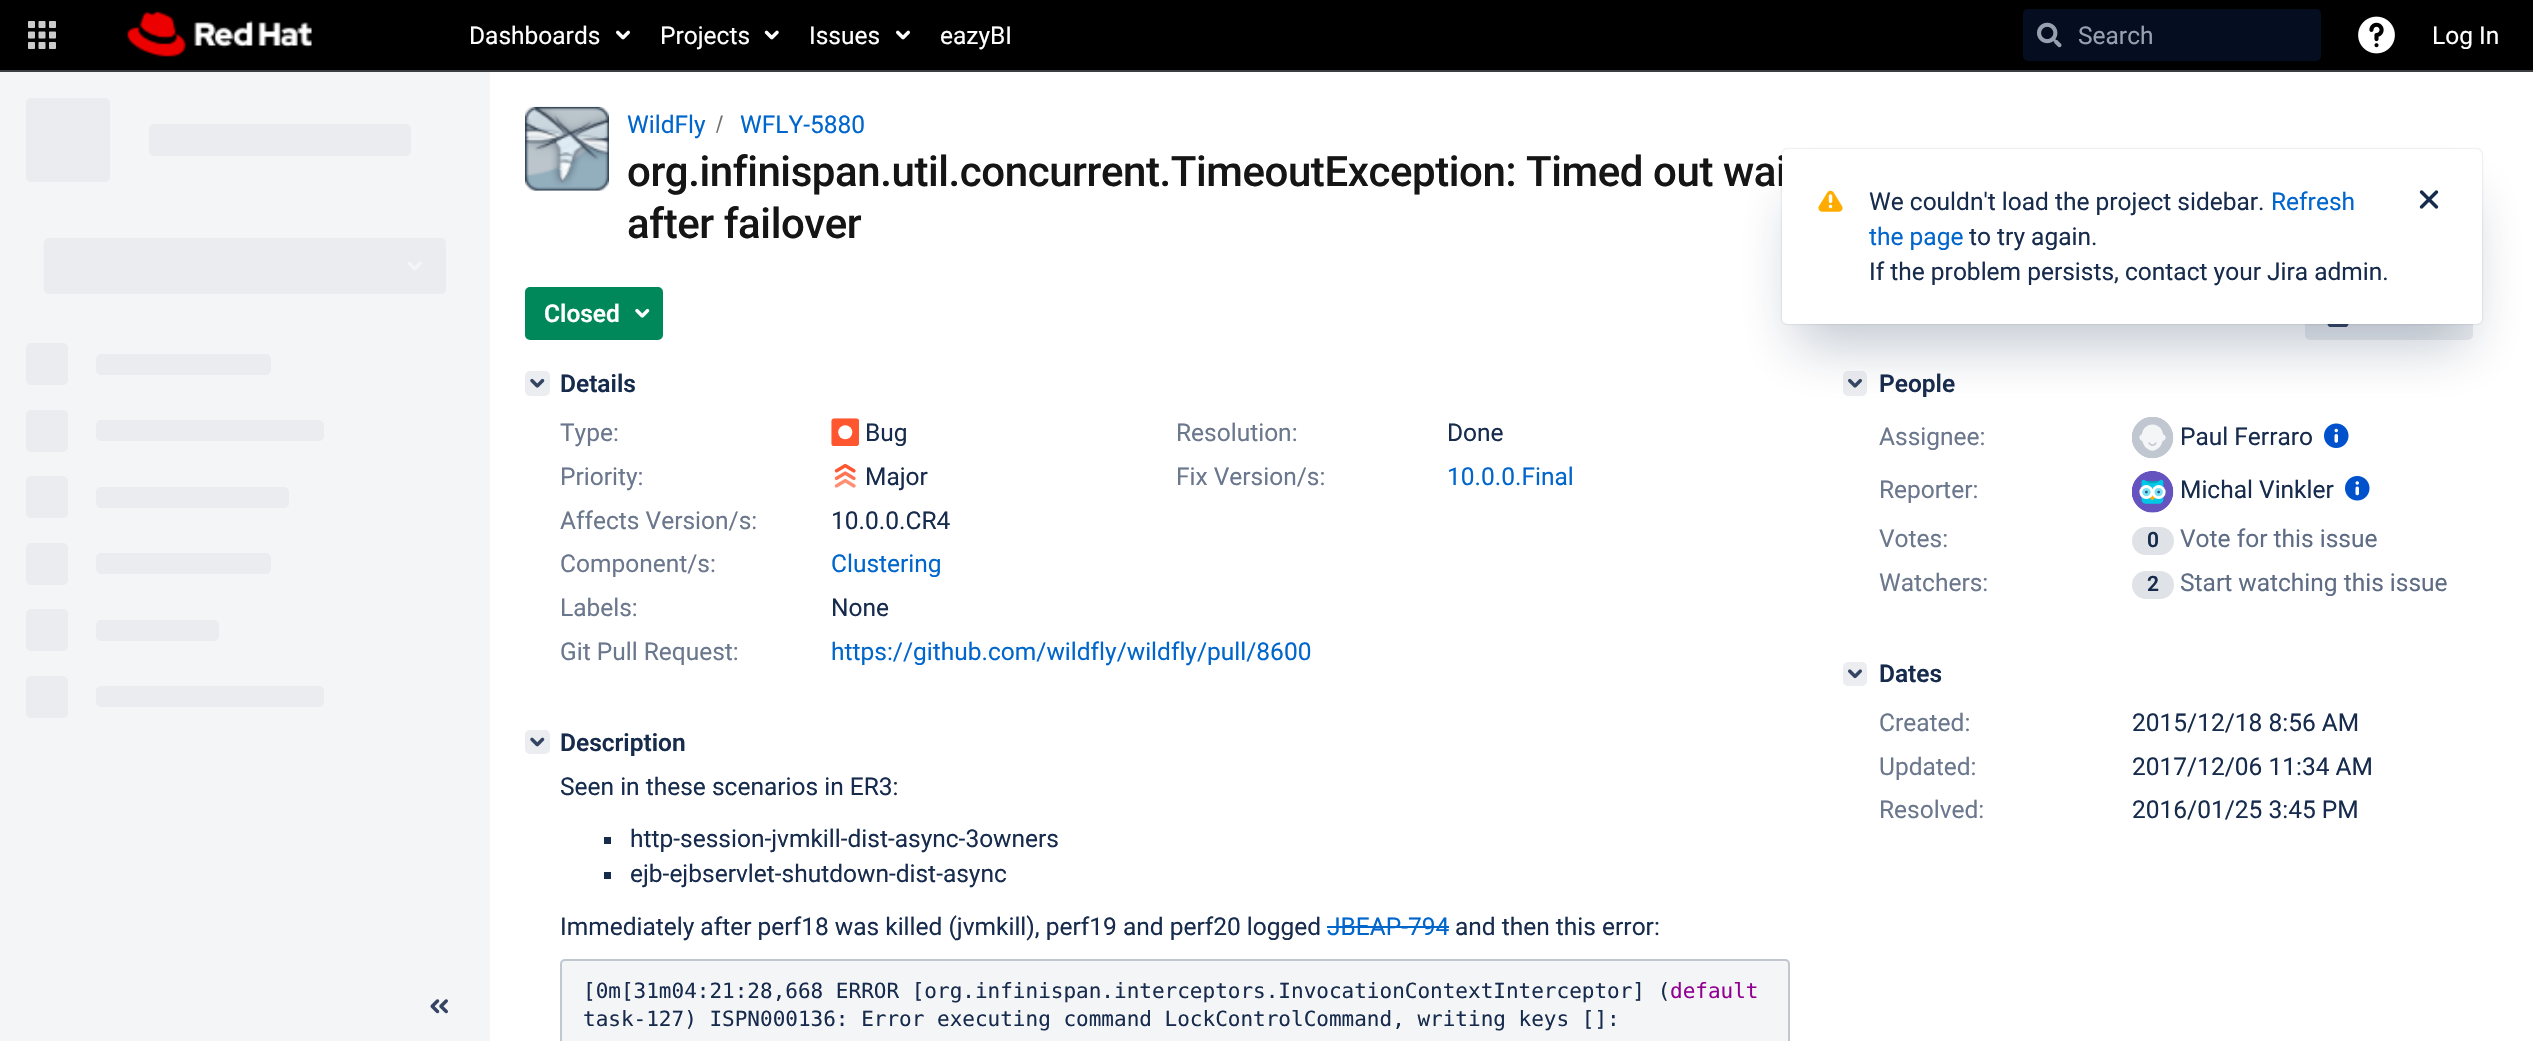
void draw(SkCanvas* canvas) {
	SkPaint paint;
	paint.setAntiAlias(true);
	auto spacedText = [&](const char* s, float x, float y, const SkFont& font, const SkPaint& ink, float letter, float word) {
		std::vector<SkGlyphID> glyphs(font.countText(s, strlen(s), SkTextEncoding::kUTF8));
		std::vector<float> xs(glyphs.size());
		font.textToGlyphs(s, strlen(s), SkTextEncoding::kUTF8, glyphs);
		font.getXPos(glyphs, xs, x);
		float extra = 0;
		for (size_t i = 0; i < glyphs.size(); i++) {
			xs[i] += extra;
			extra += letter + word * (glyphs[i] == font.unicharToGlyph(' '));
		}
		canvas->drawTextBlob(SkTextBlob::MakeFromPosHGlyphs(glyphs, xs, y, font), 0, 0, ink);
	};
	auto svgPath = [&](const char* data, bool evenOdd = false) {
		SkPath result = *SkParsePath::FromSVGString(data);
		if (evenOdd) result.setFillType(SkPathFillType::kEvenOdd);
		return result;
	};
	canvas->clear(0xffffffff);
	paint.setColor(0xff000000);
	canvas->drawRect(SkRect::MakeXYWH(0, 0, 2533, 70), paint);
	paint.setColor(0xff3c3f42);
	canvas->drawRect(SkRect::MakeXYWH(0, 70, 2533, 2), paint);
	canvas->drawImageRect(SkImages::DeferredFromEncodedData(SkData::MakeFromFileName("img1.png")), SkRect::MakeXYWH(28, 21, 28, 28), SkSamplingOptions());
	canvas->drawImageRect(SkImages::DeferredFromEncodedData(SkData::MakeFromFileName("img2.png")), SkRect::MakeXYWH(127, 11, 185, 46), SkSamplingOptions());
	SkFont f1(fontMgr->matchFamilyStyle("Roboto", SkFontStyle::Normal()), 24.5);
	f1.setSubpixel(true);
	paint.setColor(0xffffffff);
	canvas->drawString("Dashboards", 469, 44, f1, paint);
	canvas->drawImageRect(SkImages::DeferredFromEncodedData(SkData::MakeFromFileName("img3.png")), SkRect::MakeXYWH(616, 30, 14, 10), SkSamplingOptions());
	canvas->drawString("Projects", 660, 44, f1, paint);
	canvas->drawImageRect(SkImages::DeferredFromEncodedData(SkData::MakeFromFileName("img4.png")), SkRect::MakeXYWH(764, 30, 15, 10), SkSamplingOptions());
	canvas->drawString("Issues", 809, 44, f1, paint);
	canvas->drawImageRect(SkImages::DeferredFromEncodedData(SkData::MakeFromFileName("img3.png")), SkRect::MakeXYWH(896, 30, 14, 10), SkSamplingOptions());
	canvas->drawString("eazyBI", 940, 44, f1, paint);
	paint.setColor(0xff040e20);
	canvas->drawRoundRect(SkRect::MakeXYWH(2023, 9, 298, 52), 5, 5, paint);
	canvas->drawImageRect(SkImages::DeferredFromEncodedData(SkData::MakeFromFileName("img5.png")), SkRect::MakeXYWH(2037, 22, 25, 26), SkSamplingOptions());
	paint.setColor(0xff97a0af);
	canvas->drawString("Search", 2078, 44, f1, paint);
	canvas->drawImageRect(SkImages::DeferredFromEncodedData(SkData::MakeFromFileName("img6.png")), SkRect::MakeXYWH(2358, 16, 37, 38), SkSamplingOptions());
	paint.setColor(0xffffffff);
	canvas->drawString("Log In", 2432, 44, f1, paint);
	paint.setColor(0xfff4f5f7);
	canvas->drawRect(SkRect::MakeXYWH(0, 72, 490, 969), paint);
	canvas->drawImageRect(SkImages::DeferredFromEncodedData(SkData::MakeFromFileName("img7.png")), SkRect::MakeXYWH(26, 98, 420, 620), SkSamplingOptions());
	canvas->drawImageRect(SkImages::DeferredFromEncodedData(SkData::MakeFromFileName("img8.png")), SkRect::MakeXYWH(430, 999, 18, 15), SkSamplingOptions());
	canvas->drawImageRect(SkImages::DeferredFromEncodedData(SkData::MakeFromFileName("img9.png")), SkRect::MakeXYWH(525, 106, 84, 85), SkSamplingOptions());
	paint.setColor(0xff0066cc);
	canvas->drawString("WildFly", 627, 133, f1, paint);
	paint.setColor(0xff707070);
	canvas->drawPath(svgPath("M717.5 133L723 115.5H721L716 133Z"), paint);
	paint.setColor(0xff0066cc);
	canvas->drawString("WFLY-5880", 740, 133, f1, paint);
	SkFont f2(fontMgr->matchFamilyStyle("Roboto", SkFontStyle(500, SkFontStyle::kNormal_Width, SkFontStyle::kUpright_Slant)), 42);
	f2.setSubpixel(true);
	paint.setColor(0xff151515);
	spacedText("org.infinispan.util.concurrent.TimeoutException: Timed out wai", 627, 186, f2, paint, -0.42, 0);
	spacedText("after failover", 627, 238, f2, paint, -0.42, 0);
	paint.setColor(0xff00875a);
	canvas->drawRoundRect(SkRect::MakeXYWH(526, 288, 136, 51), 4, 4, paint);
	paint.setStroke(true);
	paint.setStrokeWidth(2);
	canvas->drawRoundRect(SkRect::MakeXYWH(526, 288, 136, 51), 4, 4, paint);
	SkFont f3(fontMgr->matchFamilyStyle("Roboto", SkFontStyle(600, SkFontStyle::kNormal_Width, SkFontStyle::kUpright_Slant)), 24.5);
	f3.setSubpixel(true);
	paint.setStroke(false);
	paint.setColor(0xffffffff);
	canvas->drawString("Closed", 544, 322, f3, paint);
	canvas->drawImageRect(SkImages::DeferredFromEncodedData(SkData::MakeFromFileName("img10.png")), SkRect::MakeXYWH(635, 308, 15, 10), SkSamplingOptions());
	paint.setColor(0xffebedf0);
	canvas->drawRoundRect(SkRect::MakeXYWH(2305, 287, 168, 53), 5, 5, paint);
	canvas->drawImageRect(SkImages::DeferredFromEncodedData(SkData::MakeFromFileName("img11.png")), SkRect::MakeXYWH(2327, 324, 22, 3), SkSamplingOptions());
	canvas->drawRoundRect(SkRect::MakeXYWH(525, 371, 25, 25), 5, 5, paint);
	canvas->drawImageRect(SkImages::DeferredFromEncodedData(SkData::MakeFromFileName("img12.png")), SkRect::MakeXYWH(530, 378, 15, 10), SkSamplingOptions());
	paint.setColor(0xff172b4d);
	canvas->drawString("Details", 560, 392, f3, paint);
	paint.setColor(0xff6b778c);
	canvas->drawString("Type:", 560, 441, f1, paint);
	canvas->drawImageRect(SkImages::DeferredFromEncodedData(SkData::MakeFromFileName("img13.png")), SkRect::MakeXYWH(831, 418, 28, 28), SkSamplingOptions());
	paint.setColor(0xff172b4d);
	canvas->drawString("Bug", 865, 441, f1, paint);
	paint.setColor(0xff6b778c);
	canvas->drawString("Resolution:", 1176, 441, f1, paint);
	paint.setColor(0xff172b4d);
	canvas->drawString("Done", 1447, 441, f1, paint);
	paint.setColor(0xff6b778c);
	canvas->drawString("Priority:", 560, 485, f1, paint);
	canvas->drawImageRect(SkImages::DeferredFromEncodedData(SkData::MakeFromFileName("img14.png")), SkRect::MakeXYWH(834, 463, 22, 25), SkSamplingOptions());
	paint.setColor(0xff172b4d);
	canvas->drawString("Major", 865, 485, f1, paint);
	paint.setColor(0xff6b778c);
	canvas->drawString("Fix Version/s:", 1176, 485, f1, paint);
	paint.setColor(0xff0066cc);
	canvas->drawString("10.0.0.Final", 1447, 485, f1, paint);
	paint.setColor(0xff6b778c);
	canvas->drawString("Affects Version/s:", 560, 529, f1, paint);
	paint.setColor(0xff172b4d);
	canvas->drawString("10.0.0.CR4", 831, 529, f1, paint);
	paint.setColor(0xff6b778c);
	canvas->drawString("Component/s:", 560, 572, f1, paint);
	paint.setColor(0xff0066cc);
	canvas->drawString("Clustering", 831, 572, f1, paint);
	paint.setColor(0xff6b778c);
	canvas->drawString("Labels:", 560, 616, f1, paint);
	paint.setColor(0xff172b4d);
	canvas->drawString("None", 831, 616, f1, paint);
	paint.setColor(0xff6b778c);
	canvas->drawString("Git Pull Request:", 560, 660, f1, paint);
	paint.setColor(0xff0066cc);
	canvas->drawString("https://github.com/wildfly/wildfly/pull/8600", 831, 660, f1, paint);
	paint.setColor(0xffebedf0);
	canvas->drawRoundRect(SkRect::MakeXYWH(525, 730, 25, 24), 5, 5, paint);
	canvas->drawImageRect(SkImages::DeferredFromEncodedData(SkData::MakeFromFileName("img15.png")), SkRect::MakeXYWH(530, 737, 15, 10), SkSamplingOptions());
	paint.setColor(0xff172b4d);
	canvas->drawString("Description", 560, 751, f3, paint);
	canvas->drawString("Seen in these scenarios in ER3:", 560, 795, f1, paint);
	canvas->drawRect(SkRect::MakeXYWH(604, 837, 7, 7), paint);
	canvas->drawString("http-session-jvmkill-dist-async-3owners", 630, 847, f1, paint);
	canvas->drawRect(SkRect::MakeXYWH(604, 872, 7, 7), paint);
	canvas->drawString("ejb-ejbservlet-shutdown-dist-async", 630, 882, f1, paint);
	canvas->drawString("Immediately after perf18 was killed (jvmkill), perf19 and perf20 logged", 560, 935, f1, paint);
	paint.setColor(0xff0066cc);
	canvas->drawString("JBEAP-794", 1327, 935, f1, paint);
	canvas->drawRect(SkRect::MakeXYWH(1327, 926, 122, 2), paint);
	paint.setColor(0xff172b4d);
	canvas->drawString("and then this error:", 1455, 935, f1, paint);
	paint.setColor(0xfff4f5f7);
	canvas->drawPath(svgPath("M565 959H1785C1788 959 1790 961 1790 964V1041H560V964C560 961 562 959 565 959Z"), paint);
	paint.setStroke(true);
	paint.setColor(0xffc1c7d0);
	canvas->drawRoundRect(SkRect::MakeXYWH(561, 960, 1228, 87), 4, 4, paint);
	SkFont f4(fontMgr->matchFamilyStyle("DejaVu Sans Mono", SkFontStyle::Normal()), 21);
	f4.setSubpixel(true);
	paint.setStroke(false);
	paint.setColor(0xff172b4d);
	canvas->drawString("[0m[31m04:21:28,668 ERROR [org.infinispan.interceptors.InvocationContextInterceptor] (", 583, 998, f4, paint);
	paint.setColor(0xff910091);
	canvas->drawString("default", 1670, 998, f4, paint);
	paint.setColor(0xff172b4d);
	canvas->drawString("task-127) ISPN000136: Error executing command LockControlCommand, writing keys []:", 583, 1026, f4, paint);
	paint.setColor(0xffebedf0);
	canvas->drawRoundRect(SkRect::MakeXYWH(1843, 371, 24, 25), 5, 5, paint);
	canvas->drawImageRect(SkImages::DeferredFromEncodedData(SkData::MakeFromFileName("img16.png")), SkRect::MakeXYWH(1848, 378, 14, 10), SkSamplingOptions());
	paint.setColor(0xff172b4d);
	canvas->drawString("People", 1879, 392, f3, paint);
	paint.setColor(0xff6b778c);
	canvas->drawString("Assignee:", 1879, 445, f1, paint);
	canvas->drawImageRect(SkImages::DeferredFromEncodedData(SkData::MakeFromFileName("img17.png")), SkRect::MakeXYWH(2132, 417, 42, 42), SkSamplingOptions());
	paint.setColor(0xff172b4d);
	canvas->drawString("Paul Ferraro", 2180, 445, f1, paint);
	canvas->drawImageRect(SkImages::DeferredFromEncodedData(SkData::MakeFromFileName("img18.png")), SkRect::MakeXYWH(2324, 423, 25, 25), SkSamplingOptions());
	paint.setColor(0xff6b778c);
	canvas->drawString("Reporter:", 1879, 498, f1, paint);
	canvas->drawImageRect(SkImages::DeferredFromEncodedData(SkData::MakeFromFileName("img19.png")), SkRect::MakeXYWH(2132, 471, 42, 42), SkSamplingOptions());
	paint.setColor(0xff172b4d);
	canvas->drawString("Michal Vinkler", 2180, 498, f1, paint);
	canvas->drawImageRect(SkImages::DeferredFromEncodedData(SkData::MakeFromFileName("img20.png")), SkRect::MakeXYWH(2345, 476, 25, 25), SkSamplingOptions());
	paint.setColor(0xff6b778c);
	canvas->drawString("Votes:", 1879, 547, f1, paint);
	paint.setColor(0xffdfe2e6);
	canvas->drawRoundRect(SkRect::MakeXYWH(2132, 527, 42, 28), 14, 14, paint);
	SkFont f5(fontMgr->matchFamilyStyle("Roboto", SkFontStyle(600, SkFontStyle::kNormal_Width, SkFontStyle::kUpright_Slant)), 21);
	f5.setSubpixel(true);
	paint.setColor(0xff172b4d);
	canvas->drawString("0", 2147, 547, f5, paint);
	paint.setColor(0xff5e6c84);
	canvas->drawString("Vote for this issue", 2180, 547, f1, paint);
	paint.setColor(0xff6b778c);
	canvas->drawString("Watchers:", 1879, 591, f1, paint);
	paint.setColor(0xffdfe2e6);
	canvas->drawRoundRect(SkRect::MakeXYWH(2132, 571, 42, 28), 14, 14, paint);
	paint.setColor(0xff172b4d);
	canvas->drawString("2", 2147, 591, f5, paint);
	paint.setColor(0xff5e6c84);
	canvas->drawString("Start watching this issue", 2180, 591, f1, paint);
	paint.setColor(0xffebedf0);
	canvas->drawRoundRect(SkRect::MakeXYWH(1843, 662, 24, 24), 5, 5, paint);
	canvas->drawImageRect(SkImages::DeferredFromEncodedData(SkData::MakeFromFileName("img21.png")), SkRect::MakeXYWH(1848, 669, 14, 10), SkSamplingOptions());
	paint.setColor(0xff172b4d);
	canvas->drawString("Dates", 1879, 682, f3, paint);
	paint.setColor(0xff6b778c);
	canvas->drawString("Created:", 1879, 731, f1, paint);
	paint.setColor(0xff172b4d);
	canvas->drawString("2015/12/18 8:56 AM", 2132, 731, f1, paint);
	paint.setColor(0xff6b778c);
	canvas->drawString("Updated:", 1879, 775, f1, paint);
	paint.setColor(0xff172b4d);
	canvas->drawString("2017/12/06 11:34 AM", 2132, 775, f1, paint);
	paint.setColor(0xff6b778c);
	canvas->drawString("Resolved:", 1879, 818, f1, paint);
	paint.setColor(0xff172b4d);
	canvas->drawString("2016/01/25 3:45 PM", 2132, 818, f1, paint);
	paint.setColor(0x40091e42);
	paint.setMaskFilter(SkMaskFilter::MakeBlur(kNormal_SkBlurStyle, 1));
	canvas->drawRoundRect(SkRect::MakeXYWH(1782, 149, 700, 175), 5, 5, paint);
	paint.setMaskFilter(nullptr);
	paint.setMaskFilter(SkMaskFilter::MakeBlur(kNormal_SkBlurStyle, 28));
	canvas->drawRect(SkRect::MakeXYWH(1796, 198, 672, 147), paint);
	paint.setMaskFilter(nullptr);
	paint.setColor(0xffffffff);
	canvas->drawRoundRect(SkRect::MakeXYWH(1782, 149, 700, 175), 5, 5, paint);
	canvas->drawImageRect(SkImages::DeferredFromEncodedData(SkData::MakeFromFileName("img22.png")), SkRect::MakeXYWH(1818, 190, 25, 22), SkSamplingOptions());
	paint.setColor(0xff172b4d);
	canvas->drawString("We couldn't load the project sidebar.", 1869, 210, f1, paint);
	paint.setColor(0xff0066cc);
	canvas->drawString("Refresh", 2271, 210, f1, paint);
	canvas->drawImageRect(SkImages::DeferredFromEncodedData(SkData::MakeFromFileName("img23.png")), SkRect::MakeXYWH(2419, 190, 20, 19), SkSamplingOptions());
	canvas->drawString("the page", 1869, 245, f1, paint);
	paint.setColor(0xff172b4d);
	canvas->drawString("to try again.", 1969, 245, f1, paint);
	canvas->drawString("If the problem persists, contact your Jira admin.", 1869, 280, f1, paint);
}
